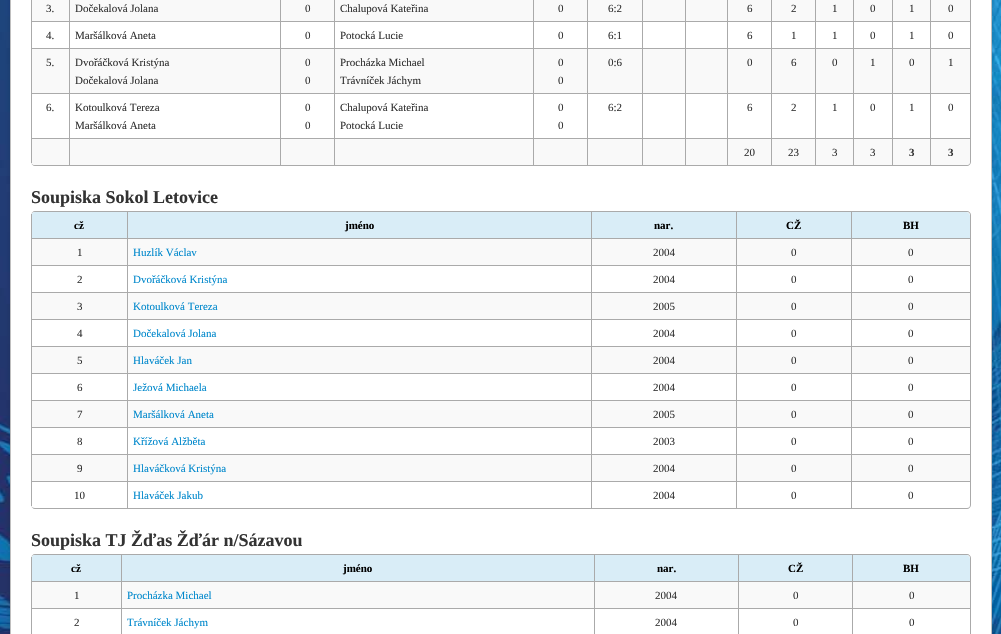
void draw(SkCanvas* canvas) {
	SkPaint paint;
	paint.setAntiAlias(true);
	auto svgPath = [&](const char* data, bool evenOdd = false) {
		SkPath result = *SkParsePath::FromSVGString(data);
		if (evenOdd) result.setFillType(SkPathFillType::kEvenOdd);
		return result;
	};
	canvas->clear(0xffffffff);
	canvas->drawImageRect(SkImages::DeferredFromEncodedData(SkData::MakeFromFileName("img1.png")), SkRect::MakeXYWH(0, 0, 1001, 634), SkSamplingOptions());
	paint.setColor(0x26000000);
	paint.setMaskFilter(SkMaskFilter::MakeBlur(kNormal_SkBlurStyle, 2.5));
	canvas->drawRoundRect(SkRect::MakeXYWH(10, -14, 982, 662), 6, 6, paint);
	paint.setMaskFilter(nullptr);
	paint.setColor(0xffffffff);
	canvas->drawRect(SkRect::MakeXYWH(10.5, -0.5, 981, 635), paint);
	paint.setStroke(true);
	paint.setStrokeWidth(1);
	paint.setColor(0xffbfbfbf);
	canvas->drawRect(SkRect::MakeXYWH(10.5, -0.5, 981, 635), paint);
	paint.setStroke(false);
	paint.setColor(0xffaaaaaa);
	canvas->drawPath(svgPath("M35-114H967C969-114 971-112 971-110V162C971 164 969 166 967 166H35C33 166 31 164 31 162V-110C31-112 33-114 35-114ZM35-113H967C969-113 970-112 970-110V162C970 164 969 165 967 165H35C33 165 31 164 31 162V-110C31-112 33-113 35-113Z", true), paint);
	paint.setColor(0xfff9f9f9);
	canvas->drawRect(SkRect::MakeXYWH(32, 0, 37, 21), paint);
	paint.setColor(0xffaaaaaa);
	canvas->drawRect(SkRect::MakeXYWH(31, 0, 1, 21), paint);
	SkFont f1(fontMgr->matchFamilyStyle("Liberation Serif", SkFontStyle::Normal()), 11);
	f1.setSubpixel(true);
	paint.setColor(0xff333333);
	canvas->drawString("3.", 46, 12, f1, paint);
	paint.setColor(0xfff9f9f9);
	canvas->drawRect(SkRect::MakeXYWH(70, 0, 210, 21), paint);
	paint.setColor(0xffaaaaaa);
	canvas->drawRect(SkRect::MakeXYWH(69, 0, 1, 21), paint);
	paint.setColor(0xff333333);
	canvas->drawString("Dočekalová Jolana", 75, 12, f1, paint);
	paint.setColor(0xfff9f9f9);
	canvas->drawRect(SkRect::MakeXYWH(281, 0, 53, 21), paint);
	paint.setColor(0xffaaaaaa);
	canvas->drawRect(SkRect::MakeXYWH(280, 0, 1, 21), paint);
	paint.setColor(0xff333333);
	canvas->drawString("0", 305, 12, f1, paint);
	paint.setColor(0xfff9f9f9);
	canvas->drawRect(SkRect::MakeXYWH(335, 0, 198, 21), paint);
	paint.setColor(0xffaaaaaa);
	canvas->drawRect(SkRect::MakeXYWH(334, 0, 1, 21), paint);
	paint.setColor(0xff333333);
	canvas->drawString("Chalupová Kateřina", 340, 12, f1, paint);
	paint.setColor(0xfff9f9f9);
	canvas->drawRect(SkRect::MakeXYWH(534, 0, 53, 21), paint);
	paint.setColor(0xffaaaaaa);
	canvas->drawRect(SkRect::MakeXYWH(533, 0, 1, 21), paint);
	paint.setColor(0xff333333);
	canvas->drawString("0", 558, 12, f1, paint);
	paint.setColor(0xfff9f9f9);
	canvas->drawRect(SkRect::MakeXYWH(588, 0, 54, 21), paint);
	paint.setColor(0xffaaaaaa);
	canvas->drawRect(SkRect::MakeXYWH(587, 0, 1, 21), paint);
	paint.setColor(0xff333333);
	canvas->drawString("6:2", 608, 12, f1, paint);
	paint.setColor(0xfff9f9f9);
	canvas->drawRect(SkRect::MakeXYWH(643, 0, 42, 21), paint);
	paint.setColor(0xffaaaaaa);
	canvas->drawRect(SkRect::MakeXYWH(642, 0, 1, 21), paint);
	paint.setColor(0xfff9f9f9);
	canvas->drawRect(SkRect::MakeXYWH(686, 0, 41, 21), paint);
	paint.setColor(0xffaaaaaa);
	canvas->drawRect(SkRect::MakeXYWH(685, 0, 1, 21), paint);
	paint.setColor(0xfff9f9f9);
	canvas->drawRect(SkRect::MakeXYWH(728, 0, 43, 21), paint);
	paint.setColor(0xffaaaaaa);
	canvas->drawRect(SkRect::MakeXYWH(727, 0, 1, 21), paint);
	paint.setColor(0xff333333);
	canvas->drawString("6", 747, 12, f1, paint);
	paint.setColor(0xfff9f9f9);
	canvas->drawRect(SkRect::MakeXYWH(772, 0, 43, 21), paint);
	paint.setColor(0xffaaaaaa);
	canvas->drawRect(SkRect::MakeXYWH(771, 0, 1, 21), paint);
	paint.setColor(0xff333333);
	canvas->drawString("2", 791, 12, f1, paint);
	paint.setColor(0xfff9f9f9);
	canvas->drawRect(SkRect::MakeXYWH(816, 0, 37, 21), paint);
	paint.setColor(0xffaaaaaa);
	canvas->drawRect(SkRect::MakeXYWH(815, 0, 1, 21), paint);
	paint.setColor(0xff333333);
	canvas->drawString("1", 832, 12, f1, paint);
	paint.setColor(0xfff9f9f9);
	canvas->drawRect(SkRect::MakeXYWH(854, 0, 38, 21), paint);
	paint.setColor(0xffaaaaaa);
	canvas->drawRect(SkRect::MakeXYWH(853, 0, 1, 21), paint);
	paint.setColor(0xff333333);
	canvas->drawString("0", 870, 12, f1, paint);
	paint.setColor(0xfff9f9f9);
	canvas->drawRect(SkRect::MakeXYWH(893, 0, 37, 21), paint);
	paint.setColor(0xffaaaaaa);
	canvas->drawRect(SkRect::MakeXYWH(892, 0, 1, 21), paint);
	paint.setColor(0xff333333);
	canvas->drawString("1", 909, 12, f1, paint);
	paint.setColor(0xfff9f9f9);
	canvas->drawRect(SkRect::MakeXYWH(931, 0, 39, 21), paint);
	paint.setColor(0xffaaaaaa);
	canvas->drawRect(SkRect::MakeXYWH(930, 0, 1, 21), paint);
	paint.setColor(0xff333333);
	canvas->drawString("0", 948, 12, f1, paint);
	paint.setColor(0xffaaaaaa);
	canvas->drawRect(SkRect::MakeXYWH(31, 21, 939, 1), paint);
	canvas->drawRect(SkRect::MakeXYWH(31, 21, 1, 27), paint);
	paint.setColor(0xff333333);
	canvas->drawString("4.", 46, 39, f1, paint);
	paint.setColor(0xffaaaaaa);
	canvas->drawRect(SkRect::MakeXYWH(69, 21, 1, 27), paint);
	paint.setColor(0xff333333);
	canvas->drawString("Maršálková Aneta", 75, 39, f1, paint);
	paint.setColor(0xffaaaaaa);
	canvas->drawRect(SkRect::MakeXYWH(280, 21, 1, 27), paint);
	paint.setColor(0xff333333);
	canvas->drawString("0", 305, 39, f1, paint);
	paint.setColor(0xffaaaaaa);
	canvas->drawRect(SkRect::MakeXYWH(334, 21, 1, 27), paint);
	paint.setColor(0xff333333);
	canvas->drawString("Potocká Lucie", 340, 39, f1, paint);
	paint.setColor(0xffaaaaaa);
	canvas->drawRect(SkRect::MakeXYWH(533, 21, 1, 27), paint);
	paint.setColor(0xff333333);
	canvas->drawString("0", 558, 39, f1, paint);
	paint.setColor(0xffaaaaaa);
	canvas->drawRect(SkRect::MakeXYWH(587, 21, 1, 27), paint);
	paint.setColor(0xff333333);
	canvas->drawString("6:1", 608, 39, f1, paint);
	paint.setColor(0xffaaaaaa);
	canvas->drawRect(SkRect::MakeXYWH(642, 21, 1, 27), paint);
	canvas->drawRect(SkRect::MakeXYWH(685, 21, 1, 27), paint);
	canvas->drawRect(SkRect::MakeXYWH(727, 21, 1, 27), paint);
	paint.setColor(0xff333333);
	canvas->drawString("6", 747, 39, f1, paint);
	paint.setColor(0xffaaaaaa);
	canvas->drawRect(SkRect::MakeXYWH(771, 21, 1, 27), paint);
	paint.setColor(0xff333333);
	canvas->drawString("1", 791, 39, f1, paint);
	paint.setColor(0xffaaaaaa);
	canvas->drawRect(SkRect::MakeXYWH(815, 21, 1, 27), paint);
	paint.setColor(0xff333333);
	canvas->drawString("1", 832, 39, f1, paint);
	paint.setColor(0xffaaaaaa);
	canvas->drawRect(SkRect::MakeXYWH(853, 21, 1, 27), paint);
	paint.setColor(0xff333333);
	canvas->drawString("0", 870, 39, f1, paint);
	paint.setColor(0xffaaaaaa);
	canvas->drawRect(SkRect::MakeXYWH(892, 21, 1, 27), paint);
	paint.setColor(0xff333333);
	canvas->drawString("1", 909, 39, f1, paint);
	paint.setColor(0xffaaaaaa);
	canvas->drawRect(SkRect::MakeXYWH(930, 21, 1, 27), paint);
	paint.setColor(0xff333333);
	canvas->drawString("0", 948, 39, f1, paint);
	paint.setColor(0xfff9f9f9);
	canvas->drawRect(SkRect::MakeXYWH(32, 49, 37, 44), paint);
	paint.setColor(0xffaaaaaa);
	canvas->drawRect(SkRect::MakeXYWH(31, 48, 939, 1), paint);
	canvas->drawRect(SkRect::MakeXYWH(31, 48, 1, 45), paint);
	paint.setColor(0xff333333);
	canvas->drawString("5.", 46, 66, f1, paint);
	paint.setColor(0xfff9f9f9);
	canvas->drawRect(SkRect::MakeXYWH(70, 49, 210, 44), paint);
	paint.setColor(0xffaaaaaa);
	canvas->drawRect(SkRect::MakeXYWH(69, 48, 1, 45), paint);
	paint.setColor(0xff333333);
	canvas->drawString("Dvořáčková Kristýna", 75, 66, f1, paint);
	canvas->drawString("Dočekalová Jolana", 75, 84, f1, paint);
	paint.setColor(0xfff9f9f9);
	canvas->drawRect(SkRect::MakeXYWH(281, 49, 53, 44), paint);
	paint.setColor(0xffaaaaaa);
	canvas->drawRect(SkRect::MakeXYWH(280, 48, 1, 45), paint);
	paint.setColor(0xff333333);
	canvas->drawString("0", 305, 66, f1, paint);
	canvas->drawString("0", 305, 84, f1, paint);
	paint.setColor(0xfff9f9f9);
	canvas->drawRect(SkRect::MakeXYWH(335, 49, 198, 44), paint);
	paint.setColor(0xffaaaaaa);
	canvas->drawRect(SkRect::MakeXYWH(334, 48, 1, 45), paint);
	paint.setColor(0xff333333);
	canvas->drawString("Procházka Michael", 340, 66, f1, paint);
	canvas->drawString("Trávníček Jáchym", 340, 84, f1, paint);
	paint.setColor(0xfff9f9f9);
	canvas->drawRect(SkRect::MakeXYWH(534, 49, 53, 44), paint);
	paint.setColor(0xffaaaaaa);
	canvas->drawRect(SkRect::MakeXYWH(533, 48, 1, 45), paint);
	paint.setColor(0xff333333);
	canvas->drawString("0", 558, 66, f1, paint);
	canvas->drawString("0", 558, 84, f1, paint);
	paint.setColor(0xfff9f9f9);
	canvas->drawRect(SkRect::MakeXYWH(588, 49, 54, 44), paint);
	paint.setColor(0xffaaaaaa);
	canvas->drawRect(SkRect::MakeXYWH(587, 48, 1, 45), paint);
	paint.setColor(0xff333333);
	canvas->drawString("0:6", 608, 66, f1, paint);
	paint.setColor(0xfff9f9f9);
	canvas->drawRect(SkRect::MakeXYWH(643, 49, 42, 44), paint);
	paint.setColor(0xffaaaaaa);
	canvas->drawRect(SkRect::MakeXYWH(642, 48, 1, 45), paint);
	paint.setColor(0xfff9f9f9);
	canvas->drawRect(SkRect::MakeXYWH(686, 49, 41, 44), paint);
	paint.setColor(0xffaaaaaa);
	canvas->drawRect(SkRect::MakeXYWH(685, 48, 1, 45), paint);
	paint.setColor(0xfff9f9f9);
	canvas->drawRect(SkRect::MakeXYWH(728, 49, 43, 44), paint);
	paint.setColor(0xffaaaaaa);
	canvas->drawRect(SkRect::MakeXYWH(727, 48, 1, 45), paint);
	paint.setColor(0xff333333);
	canvas->drawString("0", 747, 66, f1, paint);
	paint.setColor(0xfff9f9f9);
	canvas->drawRect(SkRect::MakeXYWH(772, 49, 43, 44), paint);
	paint.setColor(0xffaaaaaa);
	canvas->drawRect(SkRect::MakeXYWH(771, 48, 1, 45), paint);
	paint.setColor(0xff333333);
	canvas->drawString("6", 791, 66, f1, paint);
	paint.setColor(0xfff9f9f9);
	canvas->drawRect(SkRect::MakeXYWH(816, 49, 37, 44), paint);
	paint.setColor(0xffaaaaaa);
	canvas->drawRect(SkRect::MakeXYWH(815, 48, 1, 45), paint);
	paint.setColor(0xff333333);
	canvas->drawString("0", 832, 66, f1, paint);
	paint.setColor(0xfff9f9f9);
	canvas->drawRect(SkRect::MakeXYWH(854, 49, 38, 44), paint);
	paint.setColor(0xffaaaaaa);
	canvas->drawRect(SkRect::MakeXYWH(853, 48, 1, 45), paint);
	paint.setColor(0xff333333);
	canvas->drawString("1", 870, 66, f1, paint);
	paint.setColor(0xfff9f9f9);
	canvas->drawRect(SkRect::MakeXYWH(893, 49, 37, 44), paint);
	paint.setColor(0xffaaaaaa);
	canvas->drawRect(SkRect::MakeXYWH(892, 48, 1, 45), paint);
	paint.setColor(0xff333333);
	canvas->drawString("0", 909, 66, f1, paint);
	paint.setColor(0xfff9f9f9);
	canvas->drawRect(SkRect::MakeXYWH(931, 49, 39, 44), paint);
	paint.setColor(0xffaaaaaa);
	canvas->drawRect(SkRect::MakeXYWH(930, 48, 1, 45), paint);
	paint.setColor(0xff333333);
	canvas->drawString("1", 948, 66, f1, paint);
	paint.setColor(0xffaaaaaa);
	canvas->drawRect(SkRect::MakeXYWH(31, 93, 939, 1), paint);
	canvas->drawRect(SkRect::MakeXYWH(31, 93, 1, 45), paint);
	paint.setColor(0xff333333);
	canvas->drawString("6.", 46, 111, f1, paint);
	paint.setColor(0xffaaaaaa);
	canvas->drawRect(SkRect::MakeXYWH(69, 93, 1, 45), paint);
	paint.setColor(0xff333333);
	canvas->drawString("Kotoulková Tereza", 75, 111, f1, paint);
	canvas->drawString("Maršálková Aneta", 75, 129, f1, paint);
	paint.setColor(0xffaaaaaa);
	canvas->drawRect(SkRect::MakeXYWH(280, 93, 1, 45), paint);
	paint.setColor(0xff333333);
	canvas->drawString("0", 305, 111, f1, paint);
	canvas->drawString("0", 305, 129, f1, paint);
	paint.setColor(0xffaaaaaa);
	canvas->drawRect(SkRect::MakeXYWH(334, 93, 1, 45), paint);
	paint.setColor(0xff333333);
	canvas->drawString("Chalupová Kateřina", 340, 111, f1, paint);
	canvas->drawString("Potocká Lucie", 340, 129, f1, paint);
	paint.setColor(0xffaaaaaa);
	canvas->drawRect(SkRect::MakeXYWH(533, 93, 1, 45), paint);
	paint.setColor(0xff333333);
	canvas->drawString("0", 558, 111, f1, paint);
	canvas->drawString("0", 558, 129, f1, paint);
	paint.setColor(0xffaaaaaa);
	canvas->drawRect(SkRect::MakeXYWH(587, 93, 1, 45), paint);
	paint.setColor(0xff333333);
	canvas->drawString("6:2", 608, 111, f1, paint);
	paint.setColor(0xffaaaaaa);
	canvas->drawRect(SkRect::MakeXYWH(642, 93, 1, 45), paint);
	canvas->drawRect(SkRect::MakeXYWH(685, 93, 1, 45), paint);
	canvas->drawRect(SkRect::MakeXYWH(727, 93, 1, 45), paint);
	paint.setColor(0xff333333);
	canvas->drawString("6", 747, 111, f1, paint);
	paint.setColor(0xffaaaaaa);
	canvas->drawRect(SkRect::MakeXYWH(771, 93, 1, 45), paint);
	paint.setColor(0xff333333);
	canvas->drawString("2", 791, 111, f1, paint);
	paint.setColor(0xffaaaaaa);
	canvas->drawRect(SkRect::MakeXYWH(815, 93, 1, 45), paint);
	paint.setColor(0xff333333);
	canvas->drawString("1", 832, 111, f1, paint);
	paint.setColor(0xffaaaaaa);
	canvas->drawRect(SkRect::MakeXYWH(853, 93, 1, 45), paint);
	paint.setColor(0xff333333);
	canvas->drawString("0", 870, 111, f1, paint);
	paint.setColor(0xffaaaaaa);
	canvas->drawRect(SkRect::MakeXYWH(892, 93, 1, 45), paint);
	paint.setColor(0xff333333);
	canvas->drawString("1", 909, 111, f1, paint);
	paint.setColor(0xffaaaaaa);
	canvas->drawRect(SkRect::MakeXYWH(930, 93, 1, 45), paint);
	paint.setColor(0xff333333);
	canvas->drawString("0", 948, 111, f1, paint);
	paint.setColor(0xfff9f9f9);
	canvas->drawPath(svgPath("M31 138H69V165H35C33 165 31 163 31 161Z"), paint);
	paint.setColor(0xffaaaaaa);
	canvas->drawRect(SkRect::MakeXYWH(31, 138, 899, 1), paint);
	canvas->drawRect(SkRect::MakeXYWH(31, 138, 1, 25), paint);
	paint.setColor(0xfff9f9f9);
	canvas->drawRect(SkRect::MakeXYWH(70, 139, 210, 26), paint);
	paint.setColor(0xffaaaaaa);
	canvas->drawRect(SkRect::MakeXYWH(69, 138, 1, 27), paint);
	paint.setColor(0xfff9f9f9);
	canvas->drawRect(SkRect::MakeXYWH(281, 139, 53, 26), paint);
	paint.setColor(0xffaaaaaa);
	canvas->drawRect(SkRect::MakeXYWH(280, 138, 1, 27), paint);
	paint.setColor(0xfff9f9f9);
	canvas->drawRect(SkRect::MakeXYWH(335, 139, 198, 26), paint);
	paint.setColor(0xffaaaaaa);
	canvas->drawRect(SkRect::MakeXYWH(334, 138, 1, 27), paint);
	paint.setColor(0xfff9f9f9);
	canvas->drawRect(SkRect::MakeXYWH(534, 139, 53, 26), paint);
	paint.setColor(0xffaaaaaa);
	canvas->drawRect(SkRect::MakeXYWH(533, 138, 1, 27), paint);
	paint.setColor(0xfff9f9f9);
	canvas->drawRect(SkRect::MakeXYWH(588, 139, 54, 26), paint);
	paint.setColor(0xffaaaaaa);
	canvas->drawRect(SkRect::MakeXYWH(587, 138, 1, 27), paint);
	paint.setColor(0xfff9f9f9);
	canvas->drawRect(SkRect::MakeXYWH(643, 139, 42, 26), paint);
	paint.setColor(0xffaaaaaa);
	canvas->drawRect(SkRect::MakeXYWH(642, 138, 1, 27), paint);
	paint.setColor(0xfff9f9f9);
	canvas->drawRect(SkRect::MakeXYWH(686, 139, 41, 26), paint);
	paint.setColor(0xffaaaaaa);
	canvas->drawRect(SkRect::MakeXYWH(685, 138, 1, 27), paint);
	paint.setColor(0xfff9f9f9);
	canvas->drawRect(SkRect::MakeXYWH(728, 139, 43, 26), paint);
	paint.setColor(0xffaaaaaa);
	canvas->drawRect(SkRect::MakeXYWH(727, 138, 1, 27), paint);
	paint.setColor(0xff333333);
	canvas->drawString("20", 744, 156, f1, paint);
	paint.setColor(0xfff9f9f9);
	canvas->drawRect(SkRect::MakeXYWH(772, 139, 43, 26), paint);
	paint.setColor(0xffaaaaaa);
	canvas->drawRect(SkRect::MakeXYWH(771, 138, 1, 27), paint);
	paint.setColor(0xff333333);
	canvas->drawString("23", 788, 156, f1, paint);
	paint.setColor(0xfff9f9f9);
	canvas->drawRect(SkRect::MakeXYWH(816, 139, 37, 26), paint);
	paint.setColor(0xffaaaaaa);
	canvas->drawRect(SkRect::MakeXYWH(815, 138, 1, 27), paint);
	paint.setColor(0xff333333);
	canvas->drawString("3", 832, 156, f1, paint);
	paint.setColor(0xfff9f9f9);
	canvas->drawRect(SkRect::MakeXYWH(854, 139, 38, 26), paint);
	paint.setColor(0xffaaaaaa);
	canvas->drawRect(SkRect::MakeXYWH(853, 138, 1, 27), paint);
	paint.setColor(0xff333333);
	canvas->drawString("3", 870, 156, f1, paint);
	paint.setColor(0xfff9f9f9);
	canvas->drawRect(SkRect::MakeXYWH(893, 139, 37, 26), paint);
	paint.setColor(0xffaaaaaa);
	canvas->drawRect(SkRect::MakeXYWH(892, 138, 1, 27), paint);
	SkFont f2(fontMgr->matchFamilyStyle("Liberation Serif", SkFontStyle::Bold()), 11);
	f2.setSubpixel(true);
	paint.setColor(0xff333333);
	canvas->drawString("3", 909, 156, f2, paint);
	paint.setColor(0xfff9f9f9);
	canvas->drawPath(svgPath("M930 138H970V161C970 163 968 165 966 165H930Z"), paint);
	paint.setColor(0xffaaaaaa);
	canvas->drawRect(SkRect::MakeXYWH(930, 138, 40, 1), paint);
	canvas->drawRect(SkRect::MakeXYWH(930, 138, 1, 27), paint);
	paint.setColor(0xff333333);
	canvas->drawString("3", 948, 156, f2, paint);
	SkFont f3(fontMgr->matchFamilyStyle("Liberation Serif", SkFontStyle::Bold()), 18);
	f3.setSubpixel(true);
	canvas->drawString("Soupiska Sokol Letovice", 31, 203, f3, paint);
	paint.setColor(0xffaaaaaa);
	canvas->drawPath(svgPath("M35 211H967C969 211 971 213 971 215V505C971 507 969 509 967 509H35C33 509 31 507 31 505V215C31 213 33 211 35 211ZM35 212H967C969 212 970 213 970 215V505C970 507 969 508 967 508H35C33 508 31 507 31 505V215C31 213 33 212 35 212Z", true), paint);
	paint.setColor(0xffd9edf7);
	canvas->drawPath(svgPath("M35 212H127V238H31V216C31 214 33 212 35 212Z"), paint);
	paint.setColor(0xffaaaaaa);
	canvas->drawRect(SkRect::MakeXYWH(31, 214, 1, 24), paint);
	paint.setColor(0xff000000);
	canvas->drawString("cž", 74, 229, f2, paint);
	paint.setColor(0xffd9edf7);
	canvas->drawRect(SkRect::MakeXYWH(128, 212, 463, 26), paint);
	paint.setColor(0xffaaaaaa);
	canvas->drawRect(SkRect::MakeXYWH(127, 212, 1, 26), paint);
	paint.setColor(0xff000000);
	canvas->drawString("jméno", 345, 229, f2, paint);
	paint.setColor(0xffd9edf7);
	canvas->drawRect(SkRect::MakeXYWH(592, 212, 144, 26), paint);
	paint.setColor(0xffaaaaaa);
	canvas->drawRect(SkRect::MakeXYWH(591, 212, 1, 26), paint);
	paint.setColor(0xff000000);
	canvas->drawString("nar.", 654, 229, f2, paint);
	paint.setColor(0xffd9edf7);
	canvas->drawRect(SkRect::MakeXYWH(737, 212, 114, 26), paint);
	paint.setColor(0xffaaaaaa);
	canvas->drawRect(SkRect::MakeXYWH(736, 212, 1, 26), paint);
	paint.setColor(0xff000000);
	canvas->drawString("CŽ", 786, 229, f2, paint);
	paint.setColor(0xffd9edf7);
	canvas->drawPath(svgPath("M851 212H966C968 212 970 214 970 216V238H851Z"), paint);
	paint.setColor(0xffaaaaaa);
	canvas->drawRect(SkRect::MakeXYWH(851, 212, 1, 26), paint);
	paint.setColor(0xff000000);
	canvas->drawString("BH", 903, 229, f2, paint);
	paint.setColor(0xfff9f9f9);
	canvas->drawRect(SkRect::MakeXYWH(32, 239, 95, 26), paint);
	paint.setColor(0xffaaaaaa);
	canvas->drawRect(SkRect::MakeXYWH(31, 238, 939, 1), paint);
	canvas->drawRect(SkRect::MakeXYWH(31, 238, 1, 27), paint);
	paint.setColor(0xff333333);
	canvas->drawString("1", 77, 256, f1, paint);
	paint.setColor(0xfff9f9f9);
	canvas->drawRect(SkRect::MakeXYWH(128, 239, 463, 26), paint);
	paint.setColor(0xffaaaaaa);
	canvas->drawRect(SkRect::MakeXYWH(127, 238, 1, 27), paint);
	paint.setColor(0xff0088cc);
	canvas->drawString("Huzlík Václav", 133, 256, f1, paint);
	paint.setColor(0xfff9f9f9);
	canvas->drawRect(SkRect::MakeXYWH(592, 239, 144, 26), paint);
	paint.setColor(0xffaaaaaa);
	canvas->drawRect(SkRect::MakeXYWH(591, 238, 1, 27), paint);
	paint.setColor(0xff333333);
	canvas->drawString("2004", 653, 256, f1, paint);
	paint.setColor(0xfff9f9f9);
	canvas->drawRect(SkRect::MakeXYWH(737, 239, 114, 26), paint);
	paint.setColor(0xffaaaaaa);
	canvas->drawRect(SkRect::MakeXYWH(736, 238, 1, 27), paint);
	paint.setColor(0xff333333);
	canvas->drawString("0", 791, 256, f1, paint);
	paint.setColor(0xfff9f9f9);
	canvas->drawRect(SkRect::MakeXYWH(852, 239, 118, 26), paint);
	paint.setColor(0xffaaaaaa);
	canvas->drawRect(SkRect::MakeXYWH(851, 238, 1, 27), paint);
	paint.setColor(0xff333333);
	canvas->drawString("0", 908, 256, f1, paint);
	paint.setColor(0xffaaaaaa);
	canvas->drawRect(SkRect::MakeXYWH(31, 265, 939, 1), paint);
	canvas->drawRect(SkRect::MakeXYWH(31, 265, 1, 27), paint);
	paint.setColor(0xff333333);
	canvas->drawString("2", 77, 283, f1, paint);
	paint.setColor(0xffaaaaaa);
	canvas->drawRect(SkRect::MakeXYWH(127, 265, 1, 27), paint);
	paint.setColor(0xff0088cc);
	canvas->drawString("Dvořáčková Kristýna", 133, 283, f1, paint);
	paint.setColor(0xffaaaaaa);
	canvas->drawRect(SkRect::MakeXYWH(591, 265, 1, 27), paint);
	paint.setColor(0xff333333);
	canvas->drawString("2004", 653, 283, f1, paint);
	paint.setColor(0xffaaaaaa);
	canvas->drawRect(SkRect::MakeXYWH(736, 265, 1, 27), paint);
	paint.setColor(0xff333333);
	canvas->drawString("0", 791, 283, f1, paint);
	paint.setColor(0xffaaaaaa);
	canvas->drawRect(SkRect::MakeXYWH(851, 265, 1, 27), paint);
	paint.setColor(0xff333333);
	canvas->drawString("0", 908, 283, f1, paint);
	paint.setColor(0xfff9f9f9);
	canvas->drawRect(SkRect::MakeXYWH(32, 293, 95, 26), paint);
	paint.setColor(0xffaaaaaa);
	canvas->drawRect(SkRect::MakeXYWH(31, 292, 939, 1), paint);
	canvas->drawRect(SkRect::MakeXYWH(31, 292, 1, 27), paint);
	paint.setColor(0xff333333);
	canvas->drawString("3", 77, 310, f1, paint);
	paint.setColor(0xfff9f9f9);
	canvas->drawRect(SkRect::MakeXYWH(128, 293, 463, 26), paint);
	paint.setColor(0xffaaaaaa);
	canvas->drawRect(SkRect::MakeXYWH(127, 292, 1, 27), paint);
	paint.setColor(0xff0088cc);
	canvas->drawString("Kotoulková Tereza", 133, 310, f1, paint);
	paint.setColor(0xfff9f9f9);
	canvas->drawRect(SkRect::MakeXYWH(592, 293, 144, 26), paint);
	paint.setColor(0xffaaaaaa);
	canvas->drawRect(SkRect::MakeXYWH(591, 292, 1, 27), paint);
	paint.setColor(0xff333333);
	canvas->drawString("2005", 653, 310, f1, paint);
	paint.setColor(0xfff9f9f9);
	canvas->drawRect(SkRect::MakeXYWH(737, 293, 114, 26), paint);
	paint.setColor(0xffaaaaaa);
	canvas->drawRect(SkRect::MakeXYWH(736, 292, 1, 27), paint);
	paint.setColor(0xff333333);
	canvas->drawString("0", 791, 310, f1, paint);
	paint.setColor(0xfff9f9f9);
	canvas->drawRect(SkRect::MakeXYWH(852, 293, 118, 26), paint);
	paint.setColor(0xffaaaaaa);
	canvas->drawRect(SkRect::MakeXYWH(851, 292, 1, 27), paint);
	paint.setColor(0xff333333);
	canvas->drawString("0", 908, 310, f1, paint);
	paint.setColor(0xffaaaaaa);
	canvas->drawRect(SkRect::MakeXYWH(31, 319, 939, 1), paint);
	canvas->drawRect(SkRect::MakeXYWH(31, 319, 1, 27), paint);
	paint.setColor(0xff333333);
	canvas->drawString("4", 77, 337, f1, paint);
	paint.setColor(0xffaaaaaa);
	canvas->drawRect(SkRect::MakeXYWH(127, 319, 1, 27), paint);
	paint.setColor(0xff0088cc);
	canvas->drawString("Dočekalová Jolana", 133, 337, f1, paint);
	paint.setColor(0xffaaaaaa);
	canvas->drawRect(SkRect::MakeXYWH(591, 319, 1, 27), paint);
	paint.setColor(0xff333333);
	canvas->drawString("2004", 653, 337, f1, paint);
	paint.setColor(0xffaaaaaa);
	canvas->drawRect(SkRect::MakeXYWH(736, 319, 1, 27), paint);
	paint.setColor(0xff333333);
	canvas->drawString("0", 791, 337, f1, paint);
	paint.setColor(0xffaaaaaa);
	canvas->drawRect(SkRect::MakeXYWH(851, 319, 1, 27), paint);
	paint.setColor(0xff333333);
	canvas->drawString("0", 908, 337, f1, paint);
	paint.setColor(0xfff9f9f9);
	canvas->drawRect(SkRect::MakeXYWH(32, 347, 95, 26), paint);
	paint.setColor(0xffaaaaaa);
	canvas->drawRect(SkRect::MakeXYWH(31, 346, 939, 1), paint);
	canvas->drawRect(SkRect::MakeXYWH(31, 346, 1, 27), paint);
	paint.setColor(0xff333333);
	canvas->drawString("5", 77, 364, f1, paint);
	paint.setColor(0xfff9f9f9);
	canvas->drawRect(SkRect::MakeXYWH(128, 347, 463, 26), paint);
	paint.setColor(0xffaaaaaa);
	canvas->drawRect(SkRect::MakeXYWH(127, 346, 1, 27), paint);
	paint.setColor(0xff0088cc);
	canvas->drawString("Hlaváček Jan", 133, 364, f1, paint);
	paint.setColor(0xfff9f9f9);
	canvas->drawRect(SkRect::MakeXYWH(592, 347, 144, 26), paint);
	paint.setColor(0xffaaaaaa);
	canvas->drawRect(SkRect::MakeXYWH(591, 346, 1, 27), paint);
	paint.setColor(0xff333333);
	canvas->drawString("2004", 653, 364, f1, paint);
	paint.setColor(0xfff9f9f9);
	canvas->drawRect(SkRect::MakeXYWH(737, 347, 114, 26), paint);
	paint.setColor(0xffaaaaaa);
	canvas->drawRect(SkRect::MakeXYWH(736, 346, 1, 27), paint);
	paint.setColor(0xff333333);
	canvas->drawString("0", 791, 364, f1, paint);
	paint.setColor(0xfff9f9f9);
	canvas->drawRect(SkRect::MakeXYWH(852, 347, 118, 26), paint);
	paint.setColor(0xffaaaaaa);
	canvas->drawRect(SkRect::MakeXYWH(851, 346, 1, 27), paint);
	paint.setColor(0xff333333);
	canvas->drawString("0", 908, 364, f1, paint);
	paint.setColor(0xffaaaaaa);
	canvas->drawRect(SkRect::MakeXYWH(31, 373, 939, 1), paint);
	canvas->drawRect(SkRect::MakeXYWH(31, 373, 1, 27), paint);
	paint.setColor(0xff333333);
	canvas->drawString("6", 77, 391, f1, paint);
	paint.setColor(0xffaaaaaa);
	canvas->drawRect(SkRect::MakeXYWH(127, 373, 1, 27), paint);
	paint.setColor(0xff0088cc);
	canvas->drawString("Ježová Michaela", 133, 391, f1, paint);
	paint.setColor(0xffaaaaaa);
	canvas->drawRect(SkRect::MakeXYWH(591, 373, 1, 27), paint);
	paint.setColor(0xff333333);
	canvas->drawString("2004", 653, 391, f1, paint);
	paint.setColor(0xffaaaaaa);
	canvas->drawRect(SkRect::MakeXYWH(736, 373, 1, 27), paint);
	paint.setColor(0xff333333);
	canvas->drawString("0", 791, 391, f1, paint);
	paint.setColor(0xffaaaaaa);
	canvas->drawRect(SkRect::MakeXYWH(851, 373, 1, 27), paint);
	paint.setColor(0xff333333);
	canvas->drawString("0", 908, 391, f1, paint);
	paint.setColor(0xfff9f9f9);
	canvas->drawRect(SkRect::MakeXYWH(32, 401, 95, 26), paint);
	paint.setColor(0xffaaaaaa);
	canvas->drawRect(SkRect::MakeXYWH(31, 400, 939, 1), paint);
	canvas->drawRect(SkRect::MakeXYWH(31, 400, 1, 27), paint);
	paint.setColor(0xff333333);
	canvas->drawString("7", 77, 418, f1, paint);
	paint.setColor(0xfff9f9f9);
	canvas->drawRect(SkRect::MakeXYWH(128, 401, 463, 26), paint);
	paint.setColor(0xffaaaaaa);
	canvas->drawRect(SkRect::MakeXYWH(127, 400, 1, 27), paint);
	paint.setColor(0xff0088cc);
	canvas->drawString("Maršálková Aneta", 133, 418, f1, paint);
	paint.setColor(0xfff9f9f9);
	canvas->drawRect(SkRect::MakeXYWH(592, 401, 144, 26), paint);
	paint.setColor(0xffaaaaaa);
	canvas->drawRect(SkRect::MakeXYWH(591, 400, 1, 27), paint);
	paint.setColor(0xff333333);
	canvas->drawString("2005", 653, 418, f1, paint);
	paint.setColor(0xfff9f9f9);
	canvas->drawRect(SkRect::MakeXYWH(737, 401, 114, 26), paint);
	paint.setColor(0xffaaaaaa);
	canvas->drawRect(SkRect::MakeXYWH(736, 400, 1, 27), paint);
	paint.setColor(0xff333333);
	canvas->drawString("0", 791, 418, f1, paint);
	paint.setColor(0xfff9f9f9);
	canvas->drawRect(SkRect::MakeXYWH(852, 401, 118, 26), paint);
	paint.setColor(0xffaaaaaa);
	canvas->drawRect(SkRect::MakeXYWH(851, 400, 1, 27), paint);
	paint.setColor(0xff333333);
	canvas->drawString("0", 908, 418, f1, paint);
	paint.setColor(0xffaaaaaa);
	canvas->drawRect(SkRect::MakeXYWH(31, 427, 939, 1), paint);
	canvas->drawRect(SkRect::MakeXYWH(31, 427, 1, 27), paint);
	paint.setColor(0xff333333);
	canvas->drawString("8", 77, 445, f1, paint);
	paint.setColor(0xffaaaaaa);
	canvas->drawRect(SkRect::MakeXYWH(127, 427, 1, 27), paint);
	paint.setColor(0xff0088cc);
	canvas->drawString("Křížová Alžběta", 133, 445, f1, paint);
	paint.setColor(0xffaaaaaa);
	canvas->drawRect(SkRect::MakeXYWH(591, 427, 1, 27), paint);
	paint.setColor(0xff333333);
	canvas->drawString("2003", 653, 445, f1, paint);
	paint.setColor(0xffaaaaaa);
	canvas->drawRect(SkRect::MakeXYWH(736, 427, 1, 27), paint);
	paint.setColor(0xff333333);
	canvas->drawString("0", 791, 445, f1, paint);
	paint.setColor(0xffaaaaaa);
	canvas->drawRect(SkRect::MakeXYWH(851, 427, 1, 27), paint);
	paint.setColor(0xff333333);
	canvas->drawString("0", 908, 445, f1, paint);
	paint.setColor(0xfff9f9f9);
	canvas->drawRect(SkRect::MakeXYWH(32, 455, 95, 26), paint);
	paint.setColor(0xffaaaaaa);
	canvas->drawRect(SkRect::MakeXYWH(31, 454, 939, 1), paint);
	canvas->drawRect(SkRect::MakeXYWH(31, 454, 1, 27), paint);
	paint.setColor(0xff333333);
	canvas->drawString("9", 77, 472, f1, paint);
	paint.setColor(0xfff9f9f9);
	canvas->drawRect(SkRect::MakeXYWH(128, 455, 463, 26), paint);
	paint.setColor(0xffaaaaaa);
	canvas->drawRect(SkRect::MakeXYWH(127, 454, 1, 27), paint);
	paint.setColor(0xff0088cc);
	canvas->drawString("Hlaváčková Kristýna", 133, 472, f1, paint);
	paint.setColor(0xfff9f9f9);
	canvas->drawRect(SkRect::MakeXYWH(592, 455, 144, 26), paint);
	paint.setColor(0xffaaaaaa);
	canvas->drawRect(SkRect::MakeXYWH(591, 454, 1, 27), paint);
	paint.setColor(0xff333333);
	canvas->drawString("2004", 653, 472, f1, paint);
	paint.setColor(0xfff9f9f9);
	canvas->drawRect(SkRect::MakeXYWH(737, 455, 114, 26), paint);
	paint.setColor(0xffaaaaaa);
	canvas->drawRect(SkRect::MakeXYWH(736, 454, 1, 27), paint);
	paint.setColor(0xff333333);
	canvas->drawString("0", 791, 472, f1, paint);
	paint.setColor(0xfff9f9f9);
	canvas->drawRect(SkRect::MakeXYWH(852, 455, 118, 26), paint);
	paint.setColor(0xffaaaaaa);
	canvas->drawRect(SkRect::MakeXYWH(851, 454, 1, 27), paint);
	paint.setColor(0xff333333);
	canvas->drawString("0", 908, 472, f1, paint);
	paint.setColor(0xffaaaaaa);
	canvas->drawRect(SkRect::MakeXYWH(31, 481, 939, 1), paint);
	canvas->drawRect(SkRect::MakeXYWH(31, 481, 1, 25), paint);
	paint.setColor(0xff333333);
	canvas->drawString("10", 74, 499, f1, paint);
	paint.setColor(0xffaaaaaa);
	canvas->drawRect(SkRect::MakeXYWH(127, 481, 1, 27), paint);
	paint.setColor(0xff0088cc);
	canvas->drawString("Hlaváček Jakub", 133, 499, f1, paint);
	paint.setColor(0xffaaaaaa);
	canvas->drawRect(SkRect::MakeXYWH(591, 481, 1, 27), paint);
	paint.setColor(0xff333333);
	canvas->drawString("2004", 653, 499, f1, paint);
	paint.setColor(0xffaaaaaa);
	canvas->drawRect(SkRect::MakeXYWH(736, 481, 1, 27), paint);
	paint.setColor(0xff333333);
	canvas->drawString("0", 791, 499, f1, paint);
	paint.setColor(0xffaaaaaa);
	canvas->drawRect(SkRect::MakeXYWH(851, 481, 1, 27), paint);
	paint.setColor(0xff333333);
	canvas->drawString("0", 908, 499, f1, paint);
	canvas->drawString("Soupiska TJ Žďas Žďár n/Sázavou", 31, 546, f3, paint);
	paint.setColor(0xffaaaaaa);
	canvas->drawPath(svgPath("M35 554H967C969 554 971 556 971 558V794C971 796 969 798 967 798H35C33 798 31 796 31 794V558C31 556 33 554 35 554ZM35 555H967C969 555 970 556 970 558V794C970 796 969 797 967 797H35C33 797 31 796 31 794V558C31 556 33 555 35 555Z", true), paint);
	paint.setColor(0xffd9edf7);
	canvas->drawPath(svgPath("M35 555H121V581H31V559C31 557 33 555 35 555Z"), paint);
	paint.setColor(0xffaaaaaa);
	canvas->drawRect(SkRect::MakeXYWH(31, 557, 1, 24), paint);
	paint.setColor(0xff000000);
	canvas->drawString("cž", 71, 572, f2, paint);
	paint.setColor(0xffd9edf7);
	canvas->drawRect(SkRect::MakeXYWH(122, 555, 472, 26), paint);
	paint.setColor(0xffaaaaaa);
	canvas->drawRect(SkRect::MakeXYWH(121, 555, 1, 26), paint);
	paint.setColor(0xff000000);
	canvas->drawString("jméno", 343, 572, f2, paint);
	paint.setColor(0xffd9edf7);
	canvas->drawRect(SkRect::MakeXYWH(595, 555, 143, 26), paint);
	paint.setColor(0xffaaaaaa);
	canvas->drawRect(SkRect::MakeXYWH(594, 555, 1, 26), paint);
	paint.setColor(0xff000000);
	canvas->drawString("nar.", 657, 572, f2, paint);
	paint.setColor(0xffd9edf7);
	canvas->drawRect(SkRect::MakeXYWH(739, 555, 113, 26), paint);
	paint.setColor(0xffaaaaaa);
	canvas->drawRect(SkRect::MakeXYWH(738, 555, 1, 26), paint);
	paint.setColor(0xff000000);
	canvas->drawString("CŽ", 788, 572, f2, paint);
	paint.setColor(0xffd9edf7);
	canvas->drawPath(svgPath("M852 555H966C968 555 970 557 970 559V581H852Z"), paint);
	paint.setColor(0xffaaaaaa);
	canvas->drawRect(SkRect::MakeXYWH(852, 555, 1, 26), paint);
	paint.setColor(0xff000000);
	canvas->drawString("BH", 903, 572, f2, paint);
	paint.setColor(0xfff9f9f9);
	canvas->drawRect(SkRect::MakeXYWH(32, 582, 89, 26), paint);
	paint.setColor(0xffaaaaaa);
	canvas->drawRect(SkRect::MakeXYWH(31, 581, 939, 1), paint);
	canvas->drawRect(SkRect::MakeXYWH(31, 581, 1, 27), paint);
	paint.setColor(0xff333333);
	canvas->drawString("1", 74, 599, f1, paint);
	paint.setColor(0xfff9f9f9);
	canvas->drawRect(SkRect::MakeXYWH(122, 582, 472, 26), paint);
	paint.setColor(0xffaaaaaa);
	canvas->drawRect(SkRect::MakeXYWH(121, 581, 1, 27), paint);
	paint.setColor(0xff0088cc);
	canvas->drawString("Procházka Michael", 127, 599, f1, paint);
	paint.setColor(0xfff9f9f9);
	canvas->drawRect(SkRect::MakeXYWH(595, 582, 143, 26), paint);
	paint.setColor(0xffaaaaaa);
	canvas->drawRect(SkRect::MakeXYWH(594, 581, 1, 27), paint);
	paint.setColor(0xff333333);
	canvas->drawString("2004", 655, 599, f1, paint);
	paint.setColor(0xfff9f9f9);
	canvas->drawRect(SkRect::MakeXYWH(739, 582, 113, 26), paint);
	paint.setColor(0xffaaaaaa);
	canvas->drawRect(SkRect::MakeXYWH(738, 581, 1, 27), paint);
	paint.setColor(0xff333333);
	canvas->drawString("0", 793, 599, f1, paint);
	paint.setColor(0xfff9f9f9);
	canvas->drawRect(SkRect::MakeXYWH(853, 582, 117, 26), paint);
	paint.setColor(0xffaaaaaa);
	canvas->drawRect(SkRect::MakeXYWH(852, 581, 1, 27), paint);
	paint.setColor(0xff333333);
	canvas->drawString("0", 909, 599, f1, paint);
	paint.setColor(0xffaaaaaa);
	canvas->drawRect(SkRect::MakeXYWH(31, 608, 939, 1), paint);
	canvas->drawRect(SkRect::MakeXYWH(31, 608, 1, 26), paint);
	paint.setColor(0xff333333);
	canvas->drawString("2", 74, 626, f1, paint);
	paint.setColor(0xffaaaaaa);
	canvas->drawRect(SkRect::MakeXYWH(121, 608, 1, 26), paint);
	paint.setColor(0xff0088cc);
	canvas->drawString("Trávníček Jáchym", 127, 626, f1, paint);
	paint.setColor(0xffaaaaaa);
	canvas->drawRect(SkRect::MakeXYWH(594, 608, 1, 26), paint);
	paint.setColor(0xff333333);
	canvas->drawString("2004", 655, 626, f1, paint);
	paint.setColor(0xffaaaaaa);
	canvas->drawRect(SkRect::MakeXYWH(738, 608, 1, 26), paint);
	paint.setColor(0xff333333);
	canvas->drawString("0", 793, 626, f1, paint);
	paint.setColor(0xffaaaaaa);
	canvas->drawRect(SkRect::MakeXYWH(852, 608, 1, 26), paint);
	paint.setColor(0xff333333);
	canvas->drawString("0", 909, 626, f1, paint);
}
